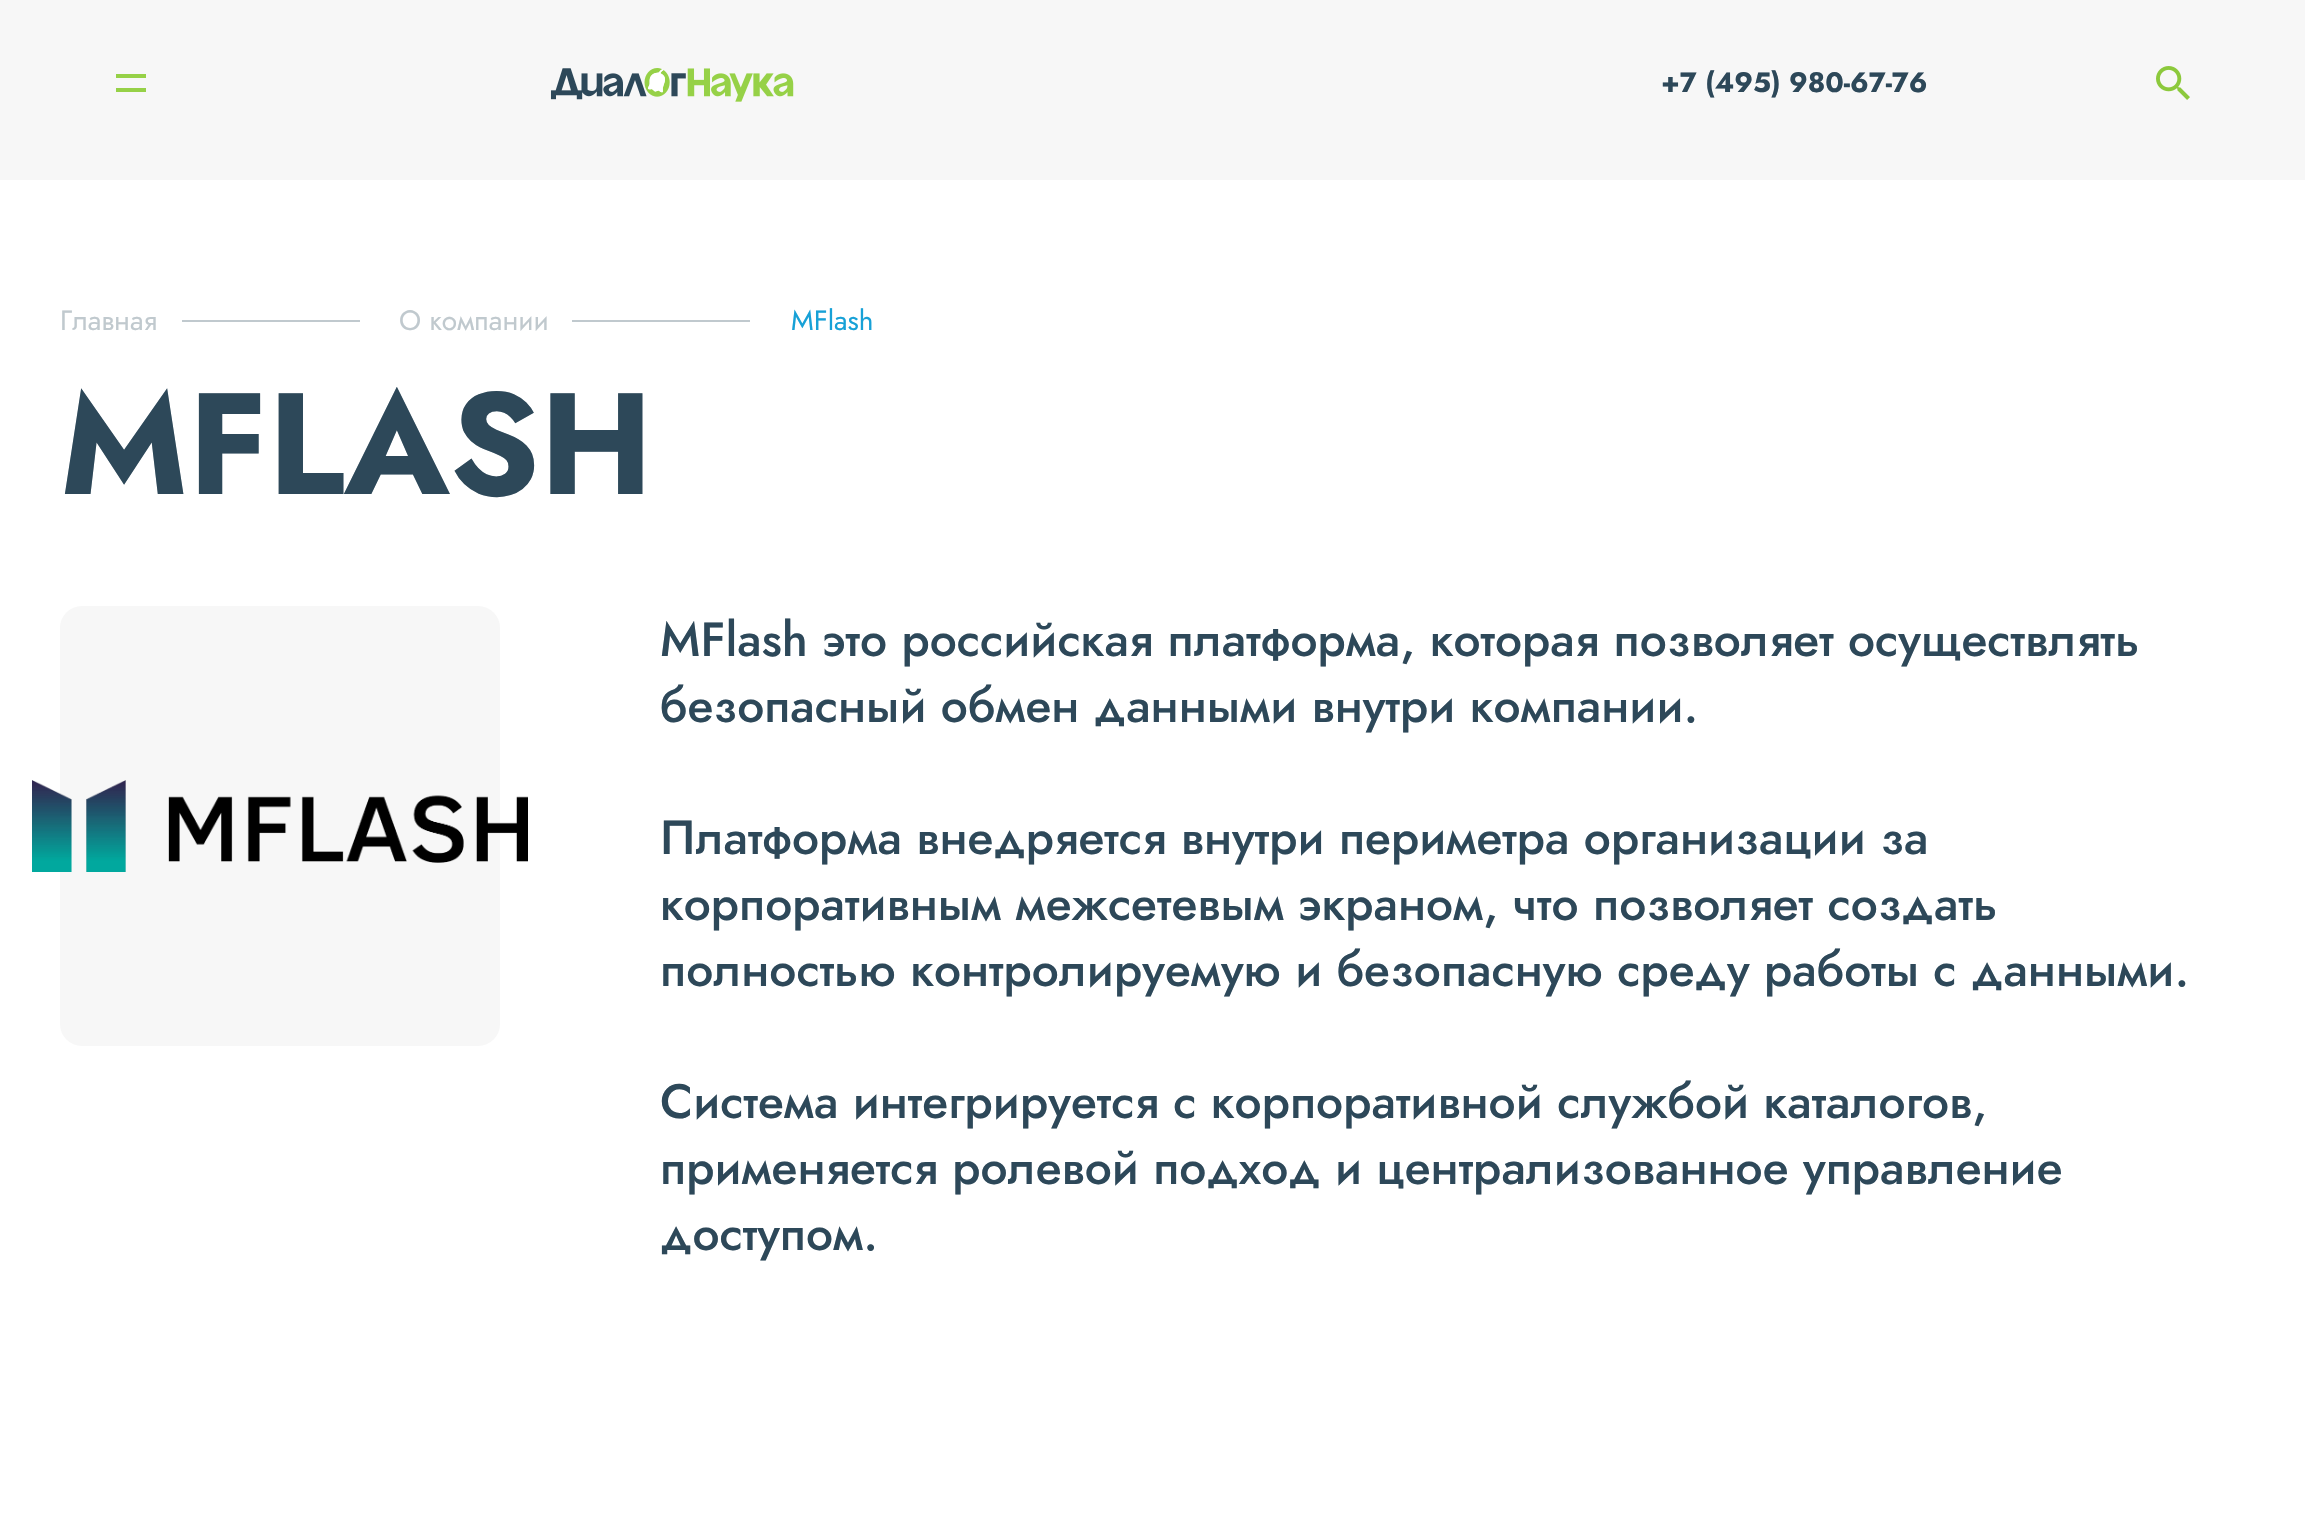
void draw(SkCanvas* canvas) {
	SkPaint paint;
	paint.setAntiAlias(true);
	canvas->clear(0xffffffff);
	paint.setColor(0xfff7f7f7);
	canvas->drawRect(SkRect::MakeXYWH(0, 0, 2305, 180), paint);
	paint.setColor(0xff96d147);
	canvas->drawRect(SkRect::MakeXYWH(116, 74, 30, 4), paint);
	canvas->drawRect(SkRect::MakeXYWH(116, 88, 30, 4), paint);
	canvas->drawImageRect(SkImages::DeferredFromEncodedData(SkData::MakeFromFileName("img1.png")), SkRect::MakeXYWH(550, 68, 244, 34), SkSamplingOptions());
	SkFont f1(fontMgr->matchFamilyStyle("Jost", SkFontStyle::Bold()), 28);
	f1.setSubpixel(true);
	paint.setColor(0xff2d4859);
	canvas->drawString("+7 (495) 980-67-76", 1661, 92, f1, paint);
	canvas->drawImageRect(SkImages::DeferredFromEncodedData(SkData::MakeFromFileName("img2.png")), SkRect::MakeXYWH(2156, 66, 34, 34), SkSamplingOptions());
	SkFont f2(fontMgr->matchFamilyStyle("Jost", SkFontStyle::Normal()), 28);
	f2.setSubpixel(true);
	paint.setColor(0xffc0c9ce);
	canvas->drawString("Главная", 60, 330, f2, paint);
	canvas->drawRect(SkRect::MakeXYWH(182, 320, 178, 2), paint);
	canvas->drawString("О компании", 399, 330, f2, paint);
	canvas->drawRect(SkRect::MakeXYWH(572, 320, 178, 2), paint);
	paint.setColor(0xff17a1d7);
	canvas->drawString("MFlash", 791, 330, f2, paint);
	SkFont f3(fontMgr->matchFamilyStyle("Jost", SkFontStyle::Bold()), 144);
	f3.setSubpixel(true);
	paint.setColor(0xff2d4859);
	canvas->drawString("MFLASH", 60, 494, f3, paint);
	paint.setColor(0xfff7f7f7);
	canvas->drawRoundRect(SkRect::MakeXYWH(60, 606, 440, 440), 22, 22, paint);
	canvas->drawImageRect(SkImages::DeferredFromEncodedData(SkData::MakeFromFileName("img3.png")), SkRect::MakeXYWH(32, 780, 496, 92), SkSamplingOptions());
	SkFont f4(fontMgr->matchFamilyStyle("Jost", SkFontStyle(500, SkFontStyle::kNormal_Width, SkFontStyle::kUpright_Slant)), 48);
	f4.setSubpixel(true);
	paint.setColor(0xff2d4859);
	canvas->drawString("MFlash это российская платформа, которая позволяет осуществлять", 660, 656, f4, paint);
	canvas->drawString("безопасный обмен данными внутри компании.", 660, 722, f4, paint);
	canvas->drawString("Платформа внедряется внутри периметра организации за", 660, 854, f4, paint);
	canvas->drawString("корпоративным межсетевым экраном, что позволяет создать", 660, 920, f4, paint);
	canvas->drawString("полностью контролируемую и безопасную среду работы с данными.", 660, 986, f4, paint);
	canvas->drawString("Система интегрируется с корпоративной службой каталогов,", 660, 1118, f4, paint);
	canvas->drawString("применяется ролевой подход и централизованное управление", 660, 1184, f4, paint);
	canvas->drawString("доступом.", 660, 1250, f4, paint);
}
